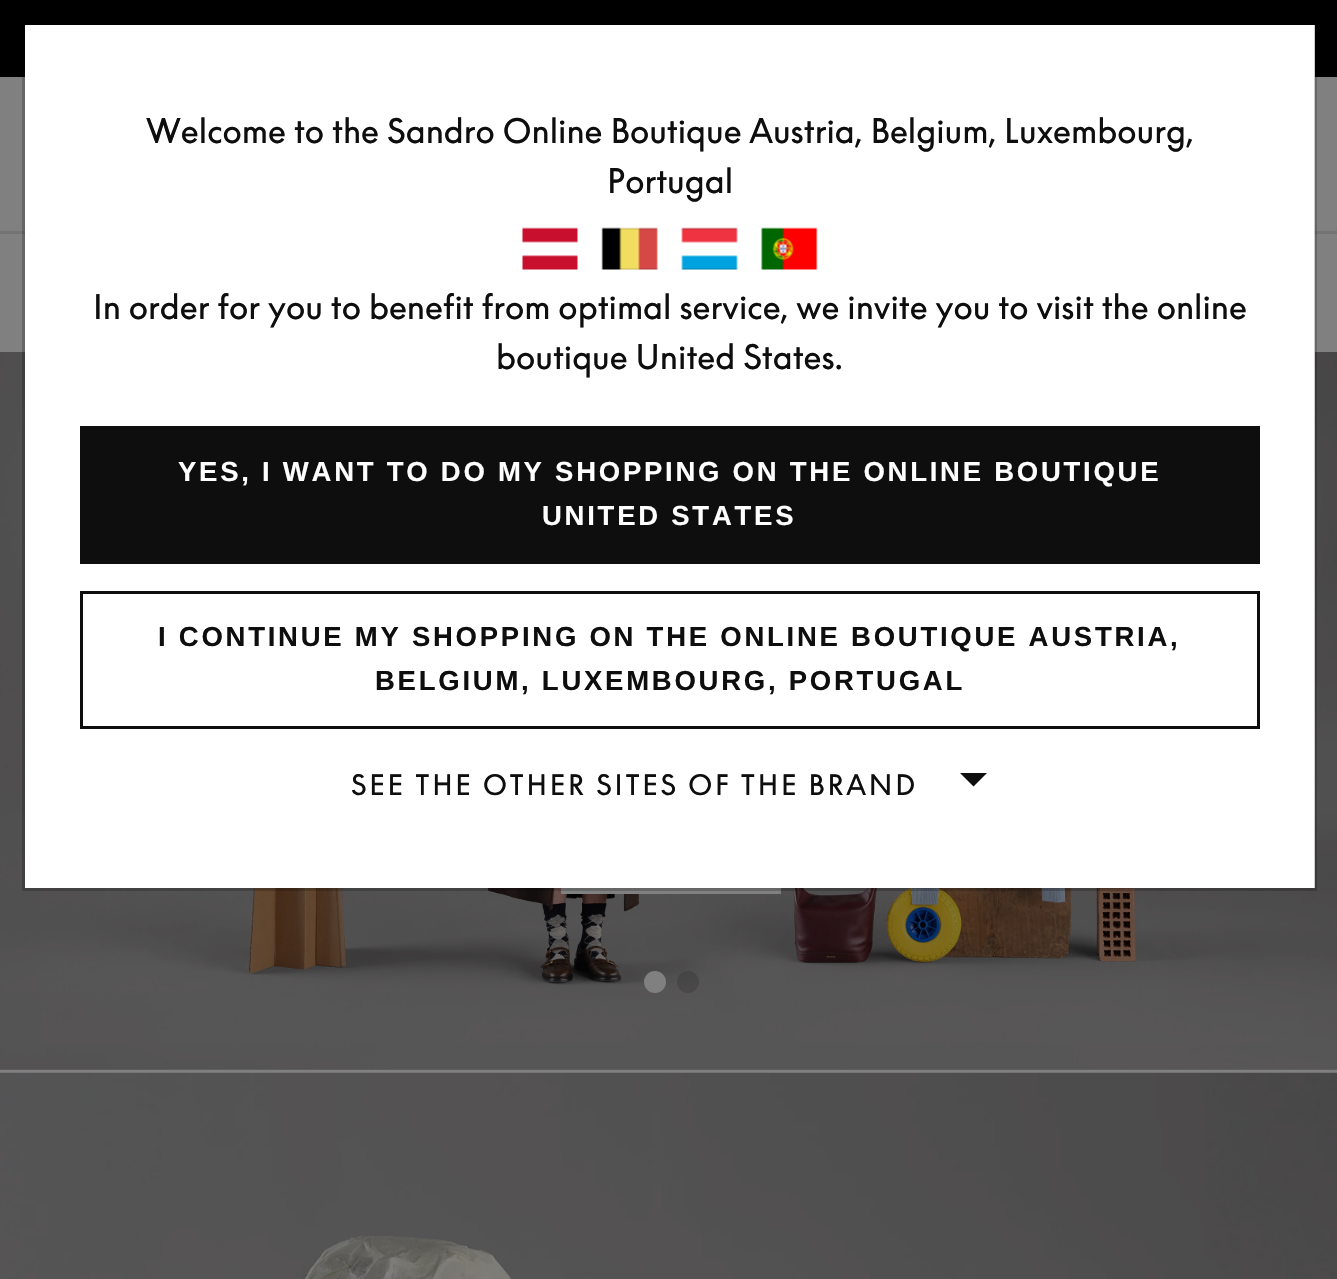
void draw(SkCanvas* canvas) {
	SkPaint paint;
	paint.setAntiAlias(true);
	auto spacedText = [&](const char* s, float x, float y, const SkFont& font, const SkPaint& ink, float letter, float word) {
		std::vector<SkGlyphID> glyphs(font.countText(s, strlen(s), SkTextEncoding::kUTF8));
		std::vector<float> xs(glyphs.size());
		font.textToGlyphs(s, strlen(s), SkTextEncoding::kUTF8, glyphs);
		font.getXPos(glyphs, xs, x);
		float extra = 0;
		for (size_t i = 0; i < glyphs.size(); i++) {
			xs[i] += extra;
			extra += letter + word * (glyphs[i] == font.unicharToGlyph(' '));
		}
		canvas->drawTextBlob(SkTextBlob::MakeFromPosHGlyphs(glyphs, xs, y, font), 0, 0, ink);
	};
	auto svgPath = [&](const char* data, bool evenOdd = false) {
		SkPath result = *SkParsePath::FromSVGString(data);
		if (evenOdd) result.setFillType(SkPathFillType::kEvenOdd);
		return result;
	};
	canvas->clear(0xff808080);
	paint.setColor(0xff000000);
	canvas->drawRect(SkRect::MakeXYWH(0, 0, 1337, 77), paint);
	paint.setColor(0xff737373);
	canvas->drawRect(SkRect::MakeXYWH(0, 231, 1337, 3), paint);
	canvas->drawImageRect(SkImages::DeferredFromEncodedData(SkData::MakeFromFileName("img5.png")), SkRect::MakeXYWH(0, 352, 1337, 718), SkSamplingOptions());
	paint.setColor(0xffffffff);
	canvas->drawRect(SkRect::MakeXYWH(25, 25, 1290, 863), paint);
	paint.setColor(0xff808080);
	canvas->drawRect(SkRect::MakeXYWH(561, 888, 220, 6), paint);
	paint.setStroke(true);
	paint.setStrokeWidth(3);
	paint.setColor(0x33000000);
	canvas->drawRect(SkRect::MakeXYWH(23.5, 23.5, 1292, 866), paint);
	SkFont f1(fontMgr->matchFamilyStyle("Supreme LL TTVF", SkFontStyle::Normal()), 33);
	f1.setSubpixel(true);
	paint.setStroke(false);
	paint.setColor(0xff0e0e0e);
	canvas->drawString("Welcome to the Sandro Online Boutique Austria, Belgium, Luxembourg,", 146, 143, f1, paint);
	canvas->drawString("Portugal", 607, 193, f1, paint);
	canvas->drawImageRect(SkImages::DeferredFromEncodedData(SkData::MakeFromFileName("img1.png")), SkRect::MakeXYWH(522, 227, 56, 43), SkSamplingOptions());
	canvas->drawImageRect(SkImages::DeferredFromEncodedData(SkData::MakeFromFileName("img2.png")), SkRect::MakeXYWH(601, 227, 57, 43), SkSamplingOptions());
	canvas->drawImageRect(SkImages::DeferredFromEncodedData(SkData::MakeFromFileName("img3.png")), SkRect::MakeXYWH(681, 227, 57, 43), SkSamplingOptions());
	canvas->drawImageRect(SkImages::DeferredFromEncodedData(SkData::MakeFromFileName("img4.png")), SkRect::MakeXYWH(761, 227, 57, 43), SkSamplingOptions());
	canvas->drawString("In order for you to benefit from optimal service, we invite you to visit the online", 93, 319, f1, paint);
	canvas->drawString("boutique United States.", 496, 369, f1, paint);
	canvas->drawRect(SkRect::MakeXYWH(80, 426, 1180, 138), paint);
	SkFont f2(fontMgr->matchFamilyStyle("Liberation Sans", SkFontStyle::Bold()), 27.5);
	f2.setSubpixel(true);
	paint.setColor(0xffffffff);
	spacedText("YES, I WANT TO DO MY SHOPPING ON THE ONLINE BOUTIQUE", 178, 481, f2, paint, 2.75, 0);
	spacedText("UNITED STATES", 542, 525, f2, paint, 2.75, 0);
	paint.setStroke(true);
	paint.setColor(0xff0e0e0e);
	canvas->drawRect(SkRect::MakeXYWH(81.5, 592.5, 1177, 135), paint);
	paint.setStroke(false);
	spacedText("I CONTINUE MY SHOPPING ON THE ONLINE BOUTIQUE AUSTRIA,", 158, 646, f2, paint, 2.75, 0);
	spacedText("BELGIUM, LUXEMBOURG, PORTUGAL", 375, 690, f2, paint, 2.75, 0);
	SkFont f3(fontMgr->matchFamilyStyle("Supreme LL TTVF", SkFontStyle::Normal()), 27.5);
	f3.setSubpixel(true);
	spacedText("SEE THE OTHER SITES OF THE BRAND", 351, 795, f3, paint, 2.75, 0);
	canvas->drawPath(svgPath("M960 773H987L973.5 786.5Z"), paint);
	paint.setColor(0xff808080);
	canvas->drawCircle(655, 982, 11, paint);
	paint.setColor(0x24000000);
	canvas->drawCircle(688, 982, 11, paint);
	canvas->drawImageRect(SkImages::DeferredFromEncodedData(SkData::MakeFromFileName("img6.png")), SkRect::MakeXYWH(0, 1072, 1337, 207), SkSamplingOptions());
}
